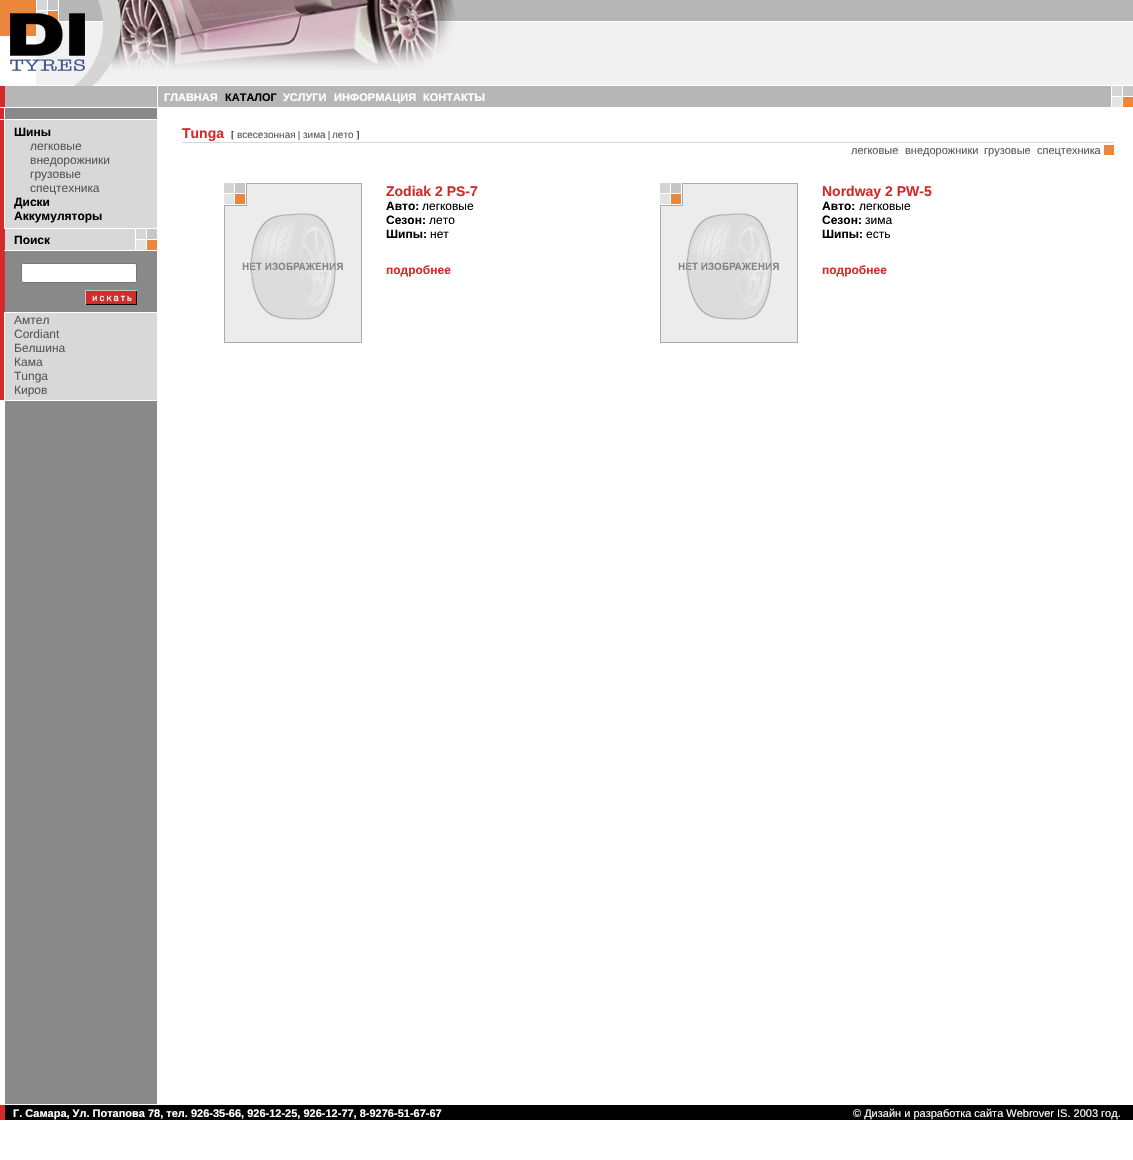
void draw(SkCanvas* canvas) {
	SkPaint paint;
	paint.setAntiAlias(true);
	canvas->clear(0xffffffff);
	paint.setColor(0xff898989);
	canvas->drawRect(SkRect::MakeXYWH(5, 401, 152, 703), paint);
	canvas->drawImageRect(SkImages::DeferredFromEncodedData(SkData::MakeFromFileName("img1.png")), SkRect::MakeXYWH(0, 0, 1133, 86), SkSamplingOptions());
	canvas->drawImageRect(SkImages::DeferredFromEncodedData(SkData::MakeFromFileName("img2.png")), SkRect::MakeXYWH(0, 0, 123, 86), SkSamplingOptions());
	canvas->drawImageRect(SkImages::DeferredFromEncodedData(SkData::MakeFromFileName("img3.png")), SkRect::MakeXYWH(123, 0, 333, 70), SkSamplingOptions());
	paint.setColor(0xffb6b6b6);
	canvas->drawRect(SkRect::MakeXYWH(5, 86, 1106, 21), paint);
	paint.setColor(0xffd52a2a);
	canvas->drawRect(SkRect::MakeXYWH(0, 86, 5, 21), paint);
	paint.setColor(0xffffffff);
	canvas->drawRect(SkRect::MakeXYWH(157, 86, 1, 21), paint);
	SkFont f1(fontMgr->matchFamilyStyle("Liberation Sans", SkFontStyle::Bold()), 11);
	f1.setSubpixel(true);
	canvas->drawString("ГЛАВНАЯ", 164, 101, f1, paint);
	paint.setColor(0xff000000);
	canvas->drawString("КАТАЛОГ", 225, 101, f1, paint);
	paint.setColor(0xffffffff);
	canvas->drawString("УСЛУГИ", 283, 101, f1, paint);
	canvas->drawString("ИНФОРМАЦИЯ", 334, 101, f1, paint);
	canvas->drawString("КОНТАКТЫ", 423, 101, f1, paint);
	canvas->drawImageRect(SkImages::DeferredFromEncodedData(SkData::MakeFromFileName("img4.png")), SkRect::MakeXYWH(1111, 86, 22, 21), SkSamplingOptions());
	canvas->drawImageRect(SkImages::DeferredFromEncodedData(SkData::MakeFromFileName("img5.png")), SkRect::MakeXYWH(0, 107, 157, 18), SkSamplingOptions());
	canvas->drawImageRect(SkImages::DeferredFromEncodedData(SkData::MakeFromFileName("img6.png")), SkRect::MakeXYWH(0, 125, 14, 103), SkSamplingOptions());
	paint.setColor(0xffd8d8d8);
	canvas->drawRect(SkRect::MakeXYWH(14, 125, 143, 103), paint);
	SkFont f2(fontMgr->matchFamilyStyle("Liberation Sans", SkFontStyle::Bold()), 12);
	f2.setSubpixel(true);
	paint.setColor(0xff000000);
	canvas->drawString("Шины", 14, 136, f2, paint);
	SkFont f3(fontMgr->matchFamilyStyle("Liberation Sans", SkFontStyle::Normal()), 12);
	f3.setSubpixel(true);
	paint.setColor(0xff575757);
	canvas->drawString("легковые", 30, 150, f3, paint);
	canvas->drawString("внедорожники", 30, 164, f3, paint);
	canvas->drawString("грузовые", 30, 178, f3, paint);
	canvas->drawString("спецтехника", 30, 192, f3, paint);
	paint.setColor(0xff000000);
	canvas->drawString("Диски", 14, 206, f2, paint);
	canvas->drawString("Аккумуляторы", 14, 220, f2, paint);
	paint.setColor(0xffd52a2a);
	canvas->drawRect(SkRect::MakeXYWH(0, 228, 4, 1), paint);
	paint.setColor(0xffd8d8d8);
	canvas->drawRect(SkRect::MakeXYWH(5, 229, 130, 21), paint);
	paint.setColor(0xffd52a2a);
	canvas->drawRect(SkRect::MakeXYWH(0, 229, 5, 21), paint);
	paint.setColor(0xff000000);
	canvas->drawString("Поиск", 14, 244, f2, paint);
	canvas->drawImageRect(SkImages::DeferredFromEncodedData(SkData::MakeFromFileName("img4.png")), SkRect::MakeXYWH(135, 229, 22, 21), SkSamplingOptions());
	paint.setColor(0xffd52a2a);
	canvas->drawRect(SkRect::MakeXYWH(0, 250, 4, 1), paint);
	paint.setColor(0xff898989);
	canvas->drawRect(SkRect::MakeXYWH(5, 251, 152, 61), paint);
	paint.setColor(0xffd52a2a);
	canvas->drawRect(SkRect::MakeXYWH(0, 251, 5, 61), paint);
	paint.setColor(0xffffffff);
	canvas->drawRoundRect(SkRect::MakeXYWH(21.5, 263.5, 115, 19), 1.5, 1.5, paint);
	paint.setStroke(true);
	paint.setStrokeWidth(1);
	paint.setColor(0xff767676);
	canvas->drawRoundRect(SkRect::MakeXYWH(21.5, 263.5, 115, 19), 1.5, 1.5, paint);
	canvas->drawImageRect(SkImages::DeferredFromEncodedData(SkData::MakeFromFileName("img7.png")), SkRect::MakeXYWH(85, 290, 52, 15), SkSamplingOptions());
	paint.setStroke(false);
	paint.setColor(0xffd52a2a);
	canvas->drawRect(SkRect::MakeXYWH(0, 312, 4, 1), paint);
	canvas->drawImageRect(SkImages::DeferredFromEncodedData(SkData::MakeFromFileName("img8.png")), SkRect::MakeXYWH(0, 313, 14, 87), SkSamplingOptions());
	paint.setColor(0xffd8d8d8);
	canvas->drawRect(SkRect::MakeXYWH(14, 313, 143, 87), paint);
	paint.setColor(0xff575757);
	canvas->drawString("Амтел", 14, 324, f3, paint);
	canvas->drawString("Cordiant", 14, 338, f3, paint);
	canvas->drawString("Белшина", 14, 352, f3, paint);
	canvas->drawString("Кама", 14, 366, f3, paint);
	canvas->drawString("Tunga", 14, 380, f3, paint);
	canvas->drawString("Киров", 14, 394, f3, paint);
	SkFont f4(fontMgr->matchFamilyStyle("Liberation Sans", SkFontStyle::Bold()), 14);
	f4.setSubpixel(true);
	paint.setColor(0xffd52a2a);
	canvas->drawString("Tunga", 182, 138, f4, paint);
	SkFont f5(fontMgr->matchFamilyStyle("Liberation Serif", SkFontStyle::Normal()), 10);
	f5.setSubpixel(true);
	paint.setColor(0xff000000);
	canvas->drawString("[", 231, 138, f5, paint);
	SkFont f6(fontMgr->matchFamilyStyle("Liberation Sans", SkFontStyle::Normal()), 10);
	f6.setSubpixel(true);
	paint.setColor(0xff575757);
	canvas->drawString("всесезонная", 237, 138, f6, paint);
	paint.setColor(0xff000000);
	canvas->drawString("|", 298, 138, f5, paint);
	paint.setColor(0xff575757);
	canvas->drawString("зима", 303, 138, f6, paint);
	paint.setColor(0xff000000);
	canvas->drawString("|", 328, 138, f5, paint);
	paint.setColor(0xff575757);
	canvas->drawString("лето", 332, 138, f6, paint);
	paint.setColor(0xff000000);
	canvas->drawString("]", 356, 138, f5, paint);
	paint.setColor(0xffd8d8d8);
	canvas->drawRect(SkRect::MakeXYWH(182, 142, 932, 1), paint);
	SkFont f7(fontMgr->matchFamilyStyle("Liberation Sans", SkFontStyle::Normal()), 11);
	f7.setSubpixel(true);
	paint.setColor(0xff575757);
	canvas->drawString("легковые", 851, 154, f7, paint);
	canvas->drawString("внедорожники", 905, 154, f7, paint);
	canvas->drawString("грузовые", 984, 154, f7, paint);
	canvas->drawString("спецтехника", 1037, 154, f7, paint);
	paint.setColor(0xffeb863a);
	canvas->drawRect(SkRect::MakeXYWH(1104, 145, 10, 10), paint);
	canvas->drawImageRect(SkImages::DeferredFromEncodedData(SkData::MakeFromFileName("img9.png")), SkRect::MakeXYWH(224, 183, 138, 160), SkSamplingOptions());
	paint.setColor(0xffd52a2a);
	canvas->drawString("Zodiak 2 PS-7", 386, 196, f4, paint);
	paint.setColor(0xff000000);
	canvas->drawString("Авто:", 386, 210, f2, paint);
	canvas->drawString("легковые", 422, 210, f3, paint);
	canvas->drawString("Сезон:", 386, 224, f2, paint);
	canvas->drawString("лето", 429, 224, f3, paint);
	canvas->drawString("Шипы:", 386, 238, f2, paint);
	canvas->drawString("нет", 430, 238, f3, paint);
	paint.setColor(0xffd52a2a);
	canvas->drawString("подробнее", 386, 274, f2, paint);
	canvas->drawImageRect(SkImages::DeferredFromEncodedData(SkData::MakeFromFileName("img9.png")), SkRect::MakeXYWH(660, 183, 138, 160), SkSamplingOptions());
	canvas->drawString("Nordway 2 PW-5", 822, 196, f4, paint);
	paint.setColor(0xff000000);
	canvas->drawString("Авто:", 822, 210, f2, paint);
	canvas->drawString("легковые", 859, 210, f3, paint);
	canvas->drawString("Сезон:", 822, 224, f2, paint);
	canvas->drawString("зима", 865, 224, f3, paint);
	canvas->drawString("Шипы:", 822, 238, f2, paint);
	canvas->drawString("есть", 866, 238, f3, paint);
	paint.setColor(0xffd52a2a);
	canvas->drawString("подробнее", 822, 274, f2, paint);
	paint.setColor(0xff000000);
	canvas->drawRect(SkRect::MakeXYWH(5, 1105, 1128, 15), paint);
	paint.setColor(0xffd52a2a);
	canvas->drawRect(SkRect::MakeXYWH(0, 1105, 5, 15), paint);
	paint.setColor(0xffffffff);
	canvas->drawString("Г. Самара, Ул. Потапова 78, тел. 926-35-66, 926-12-25, 926-12-77, 8-9276-51-67-67", 13, 1117, f1, paint);
	canvas->drawString("© Дизайн и разработка сайта Webrover IS. 2003 год.", 853, 1117, f7, paint);
}
